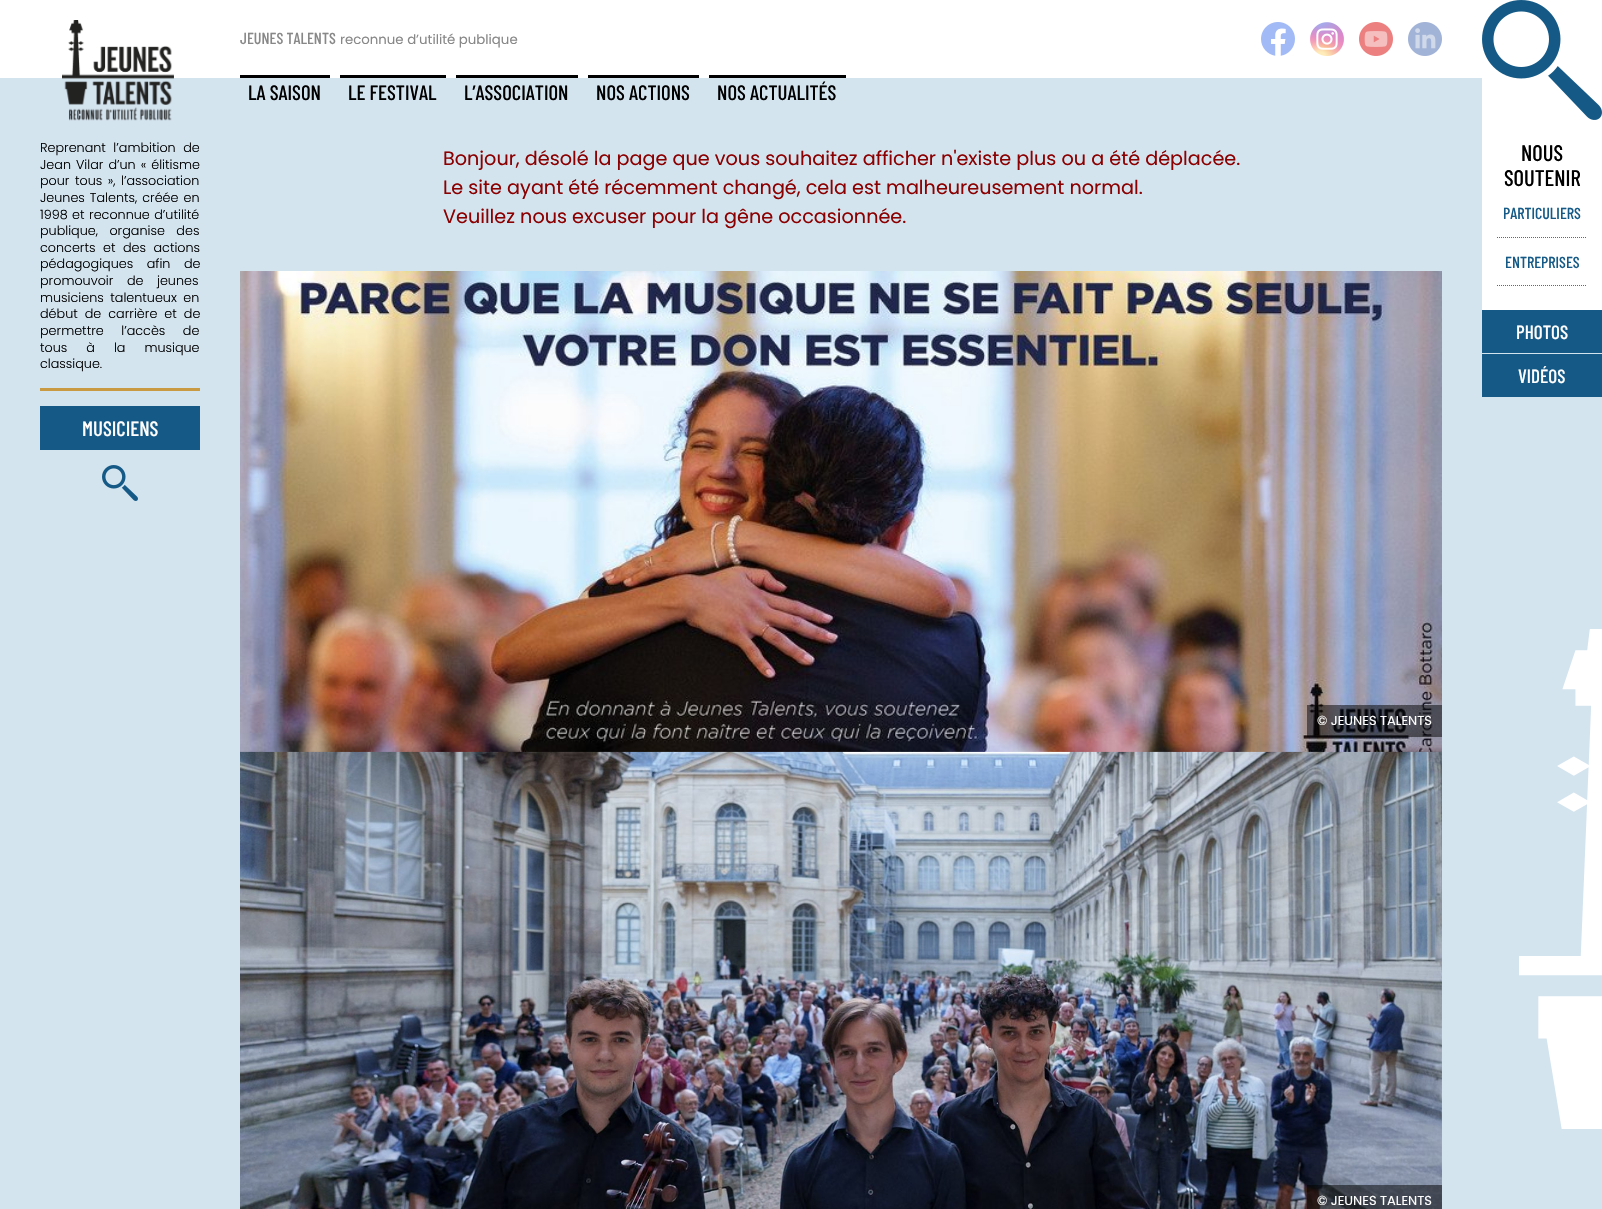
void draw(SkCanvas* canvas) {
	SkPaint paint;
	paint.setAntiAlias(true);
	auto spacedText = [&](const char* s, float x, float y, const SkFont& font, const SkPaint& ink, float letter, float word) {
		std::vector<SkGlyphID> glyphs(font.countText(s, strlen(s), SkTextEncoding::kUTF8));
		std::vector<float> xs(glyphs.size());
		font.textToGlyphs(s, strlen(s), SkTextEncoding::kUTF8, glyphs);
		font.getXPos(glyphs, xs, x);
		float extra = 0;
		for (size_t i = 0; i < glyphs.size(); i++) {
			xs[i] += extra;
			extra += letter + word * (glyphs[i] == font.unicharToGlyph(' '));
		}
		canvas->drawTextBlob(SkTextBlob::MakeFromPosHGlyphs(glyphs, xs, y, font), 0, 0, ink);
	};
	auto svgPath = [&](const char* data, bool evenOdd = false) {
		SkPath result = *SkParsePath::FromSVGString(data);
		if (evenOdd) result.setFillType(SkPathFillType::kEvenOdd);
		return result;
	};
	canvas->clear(0xffd4e4ef);
	canvas->drawImageRect(SkImages::DeferredFromEncodedData(SkData::MakeFromFileName("img1.png")), SkRect::MakeXYWH(1519, 629, 83, 500), SkSamplingOptions());
	paint.setColor(0xffffffff);
	canvas->drawRect(SkRect::MakeXYWH(0, 0, 1482, 78), paint);
	canvas->drawImageRect(SkImages::DeferredFromEncodedData(SkData::MakeFromFileName("img2.png")), SkRect::MakeXYWH(62, 20, 112, 101), SkSamplingOptions());
	SkFont f1(fontMgr->matchFamilyStyle("Barlow Condensed", SkFontStyle(500, SkFontStyle::kNormal_Width, SkFontStyle::kUpright_Slant)), 16);
	f1.setSubpixel(true);
	paint.setColor(0xff888888);
	canvas->drawString("JEUNES TALENTS", 240, 44, f1, paint);
	SkFont f2(fontMgr->matchFamilyStyle("Poppins", SkFontStyle::Normal()), 13.3);
	f2.setSubpixel(true);
	canvas->drawString("reconnue d’utilité publique", 340, 44, f2, paint);
	canvas->drawImageRect(SkImages::DeferredFromEncodedData(SkData::MakeFromFileName("img3.png")), SkRect::MakeXYWH(1261, 22, 34, 34), SkSamplingOptions());
	canvas->drawImageRect(SkImages::DeferredFromEncodedData(SkData::MakeFromFileName("img4.png")), SkRect::MakeXYWH(1310, 22, 34, 34), SkSamplingOptions());
	canvas->drawImageRect(SkImages::DeferredFromEncodedData(SkData::MakeFromFileName("img5.png")), SkRect::MakeXYWH(1359, 22, 34, 34), SkSamplingOptions());
	canvas->drawImageRect(SkImages::DeferredFromEncodedData(SkData::MakeFromFileName("img6.png")), SkRect::MakeXYWH(1408, 22, 34, 34), SkSamplingOptions());
	paint.setColor(0xff000000);
	canvas->drawRect(SkRect::MakeXYWH(240, 75, 90, 3), paint);
	SkFont f3(fontMgr->matchFamilyStyle("Barlow Condensed", SkFontStyle(500, SkFontStyle::kNormal_Width, SkFontStyle::kUpright_Slant)), 20.75);
	f3.setSubpixel(true);
	canvas->drawString("LA SAISON", 248, 100, f3, paint);
	canvas->drawRect(SkRect::MakeXYWH(340, 75, 106, 3), paint);
	canvas->drawString("LE FESTIVAL", 348, 100, f3, paint);
	canvas->drawRect(SkRect::MakeXYWH(456, 75, 122, 3), paint);
	canvas->drawString("L’ASSOCIATION", 464, 100, f3, paint);
	canvas->drawRect(SkRect::MakeXYWH(588, 75, 111, 3), paint);
	canvas->drawString("NOS ACTIONS", 596, 100, f3, paint);
	canvas->drawRect(SkRect::MakeXYWH(709, 75, 137, 3), paint);
	canvas->drawString("NOS ACTUALITÉS", 717, 100, f3, paint);
	paint.setColor(0xffca9a42);
	canvas->drawRect(SkRect::MakeXYWH(40, 388, 160, 3), paint);
	SkFont f4(fontMgr->matchFamilyStyle("Poppins", SkFontStyle(300, SkFontStyle::kNormal_Width, SkFontStyle::kUpright_Slant)), 12.75);
	f4.setSubpixel(true);
	paint.setColor(0xff000000);
	spacedText("Reprenant l’ambition de", 40, 152, f4, paint, 0, 4);
	spacedText("Jean Vilar d’un « élitisme", 40, 169, f4, paint, 0, 1.5);
	spacedText("pour tous », l’association", 40, 185, f4, paint, 0, 2);
	spacedText("Jeunes Talents, créée en", 40, 202, f4, paint, 0, 1.5);
	spacedText("1998 et reconnue d’utilité", 40, 219, f4, paint, 0, 1);
	spacedText("publique, organise des", 40, 235, f4, paint, 0, 8);
	spacedText("concerts et des actions", 40, 252, f4, paint, 0, 4);
	spacedText("pédagogiques afin de", 40, 268, f4, paint, 0, 10);
	spacedText("promouvoir de jeunes", 40, 285, f4, paint, 0, 10);
	spacedText("musiciens talentueux en", 40, 302, f4, paint, 0, 3);
	spacedText("début de carrière et de", 40, 318, f4, paint, 0, 3.5);
	spacedText("permettre l’accès de", 40, 335, f4, paint, 0, 14);
	spacedText("tous à la musique", 40, 352, f4, paint, 0, 15.5);
	canvas->drawString("classique.", 40, 368, f4, paint);
	paint.setColor(0xff155a86);
	canvas->drawRect(SkRect::MakeXYWH(40, 406, 160, 44), paint);
	paint.setColor(0xffffffff);
	canvas->drawString("MUSICIENS", 82, 436, f3, paint);
	canvas->drawImageRect(SkImages::DeferredFromEncodedData(SkData::MakeFromFileName("img7.png")), SkRect::MakeXYWH(102, 465, 36, 36), SkSamplingOptions());
	SkFont f5(fontMgr->matchFamilyStyle("Poppins", SkFontStyle::Normal()), 19.2);
	f5.setSubpixel(true);
	paint.setColor(0xff8b0000);
	canvas->drawString("Bonjour, désolé la page que vous souhaitez afficher n'existe plus ou a été déplacée.", 443, 165, f5, paint);
	canvas->drawString("Le site ayant été récemment changé, cela est malheureusement normal.", 443, 194, f5, paint);
	canvas->drawString("Veuillez nous excuser pour la gêne occasionnée.", 443, 223, f5, paint);
	canvas->drawImageRect(SkImages::DeferredFromEncodedData(SkData::MakeFromFileName("img8.png")), SkRect::MakeXYWH(240, 271, 1202, 481), SkSamplingOptions());
	paint.setColor(0x80000000);
	canvas->drawRect(SkRect::MakeXYWH(1307, 705, 135, 32), paint);
	SkFont f6(fontMgr->matchFamilyStyle("Poppins", SkFontStyle::Normal()), 13);
	f6.setSubpixel(true);
	paint.setColor(0xffffffff);
	canvas->drawString("© JEUNES TALENTS", 1317, 725, f6, paint);
	canvas->drawImageRect(SkImages::DeferredFromEncodedData(SkData::MakeFromFileName("img9.png")), SkRect::MakeXYWH(240, 751, 1202, 458), SkSamplingOptions());
	paint.setColor(0x80000000);
	canvas->drawRect(SkRect::MakeXYWH(1307, 1185, 135, 24), paint);
	paint.setColor(0xffffffff);
	canvas->drawString("© JEUNES TALENTS", 1317, 1205, f6, paint);
	canvas->drawRect(SkRect::MakeXYWH(1482, 0, 120, 310), paint);
	canvas->drawImageRect(SkImages::DeferredFromEncodedData(SkData::MakeFromFileName("img10.png")), SkRect::MakeXYWH(1482, 0, 120, 120), SkSamplingOptions());
	SkFont f7(fontMgr->matchFamilyStyle("Barlow Condensed", SkFontStyle(500, SkFontStyle::kNormal_Width, SkFontStyle::kUpright_Slant)), 22.5);
	f7.setSubpixel(true);
	paint.setColor(0xff000000);
	canvas->drawString("NOUS", 1521, 161, f7, paint);
	canvas->drawString("SOUTENIR", 1504, 186, f7, paint);
	paint.setStroke(true);
	paint.setStrokeWidth(1);
	paint.setColor(0xff666666);
	paint.setPathEffect(SkDashPathEffect::Make({{1, 1}}, 0));
	canvas->drawPath(svgPath("M1497 237.5H1587"), paint);
	paint.setPathEffect(nullptr);
	paint.setStroke(false);
	paint.setColor(0xff155a86);
	canvas->drawString("PARTICULIERS", 1503, 219, f1, paint);
	paint.setStroke(true);
	paint.setColor(0xff666666);
	paint.setPathEffect(SkDashPathEffect::Make({{1, 1}}, 0));
	canvas->drawPath(svgPath("M1497 285.5H1587"), paint);
	paint.setPathEffect(nullptr);
	paint.setStroke(false);
	paint.setColor(0xff155a86);
	canvas->drawString("ENTREPRISES", 1505, 268, f1, paint);
	canvas->drawRect(SkRect::MakeXYWH(1482, 310, 120, 43), paint);
	SkFont f8(fontMgr->matchFamilyStyle("Barlow Condensed", SkFontStyle(500, SkFontStyle::kNormal_Width, SkFontStyle::kUpright_Slant)), 19.2);
	f8.setSubpixel(true);
	paint.setColor(0xffffffff);
	canvas->drawString("PHOTOS", 1516, 339, f8, paint);
	paint.setColor(0xff155a86);
	canvas->drawRect(SkRect::MakeXYWH(1482, 354, 120, 43), paint);
	paint.setColor(0xffffffff);
	canvas->drawString("VIDÉOS", 1518, 383, f8, paint);
}
